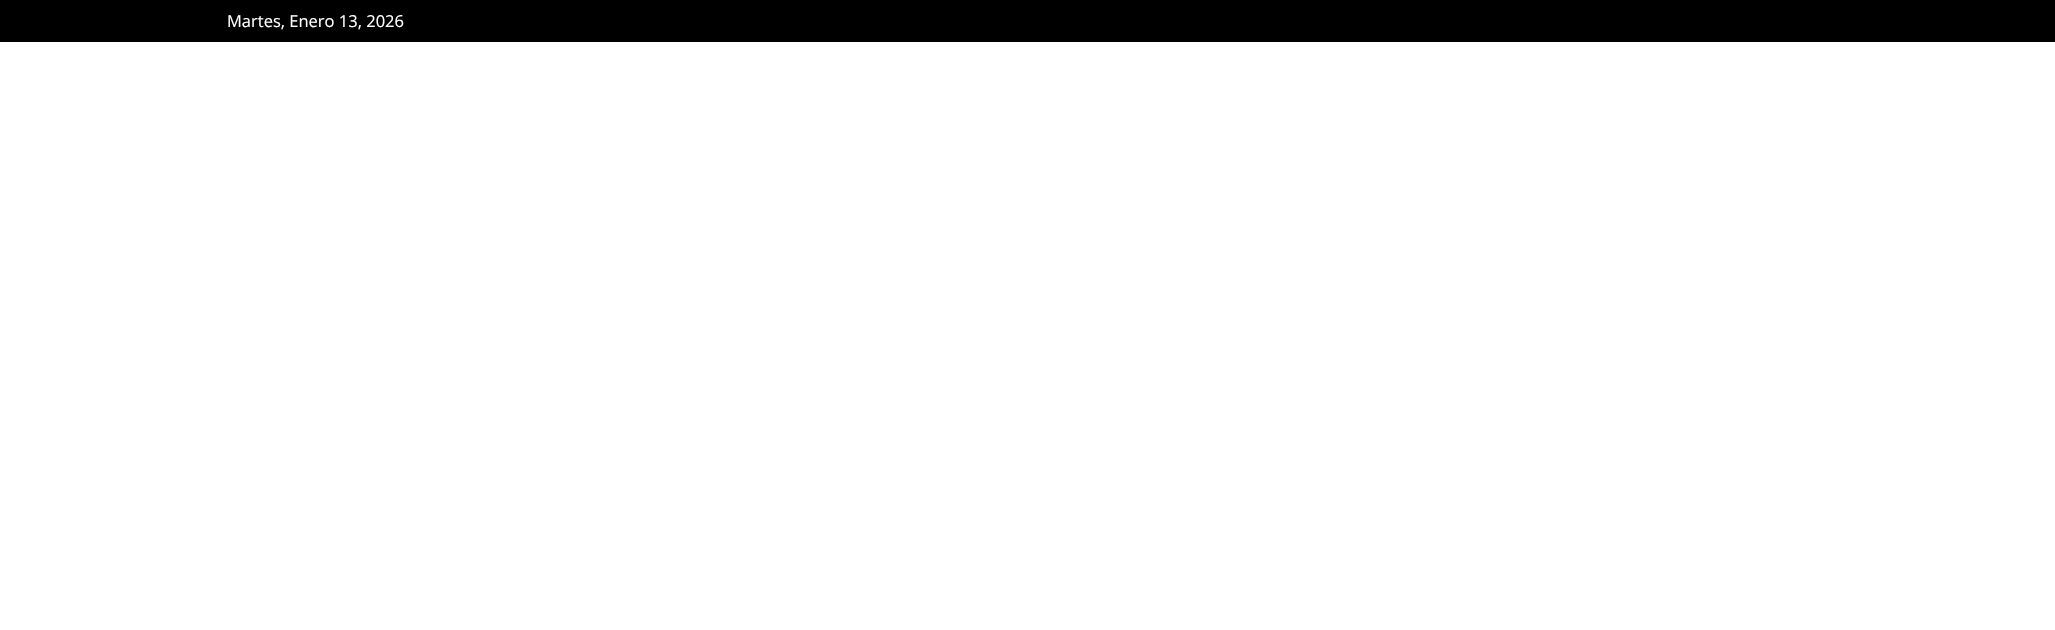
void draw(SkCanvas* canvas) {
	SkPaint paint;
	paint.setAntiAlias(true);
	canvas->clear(0xffffffff);
	paint.setColor(0xff000000);
	canvas->drawRect(SkRect::MakeXYWH(0, 0, 2055, 42), paint);
	SkFont f1(fontMgr->matchFamilyStyle("Open Sans", SkFontStyle::Normal()), 16.5);
	f1.setSubpixel(true);
	paint.setColor(0xffffffff);
	canvas->drawString("Martes, Enero 13, 2026", 227, 27, f1, paint);
}
